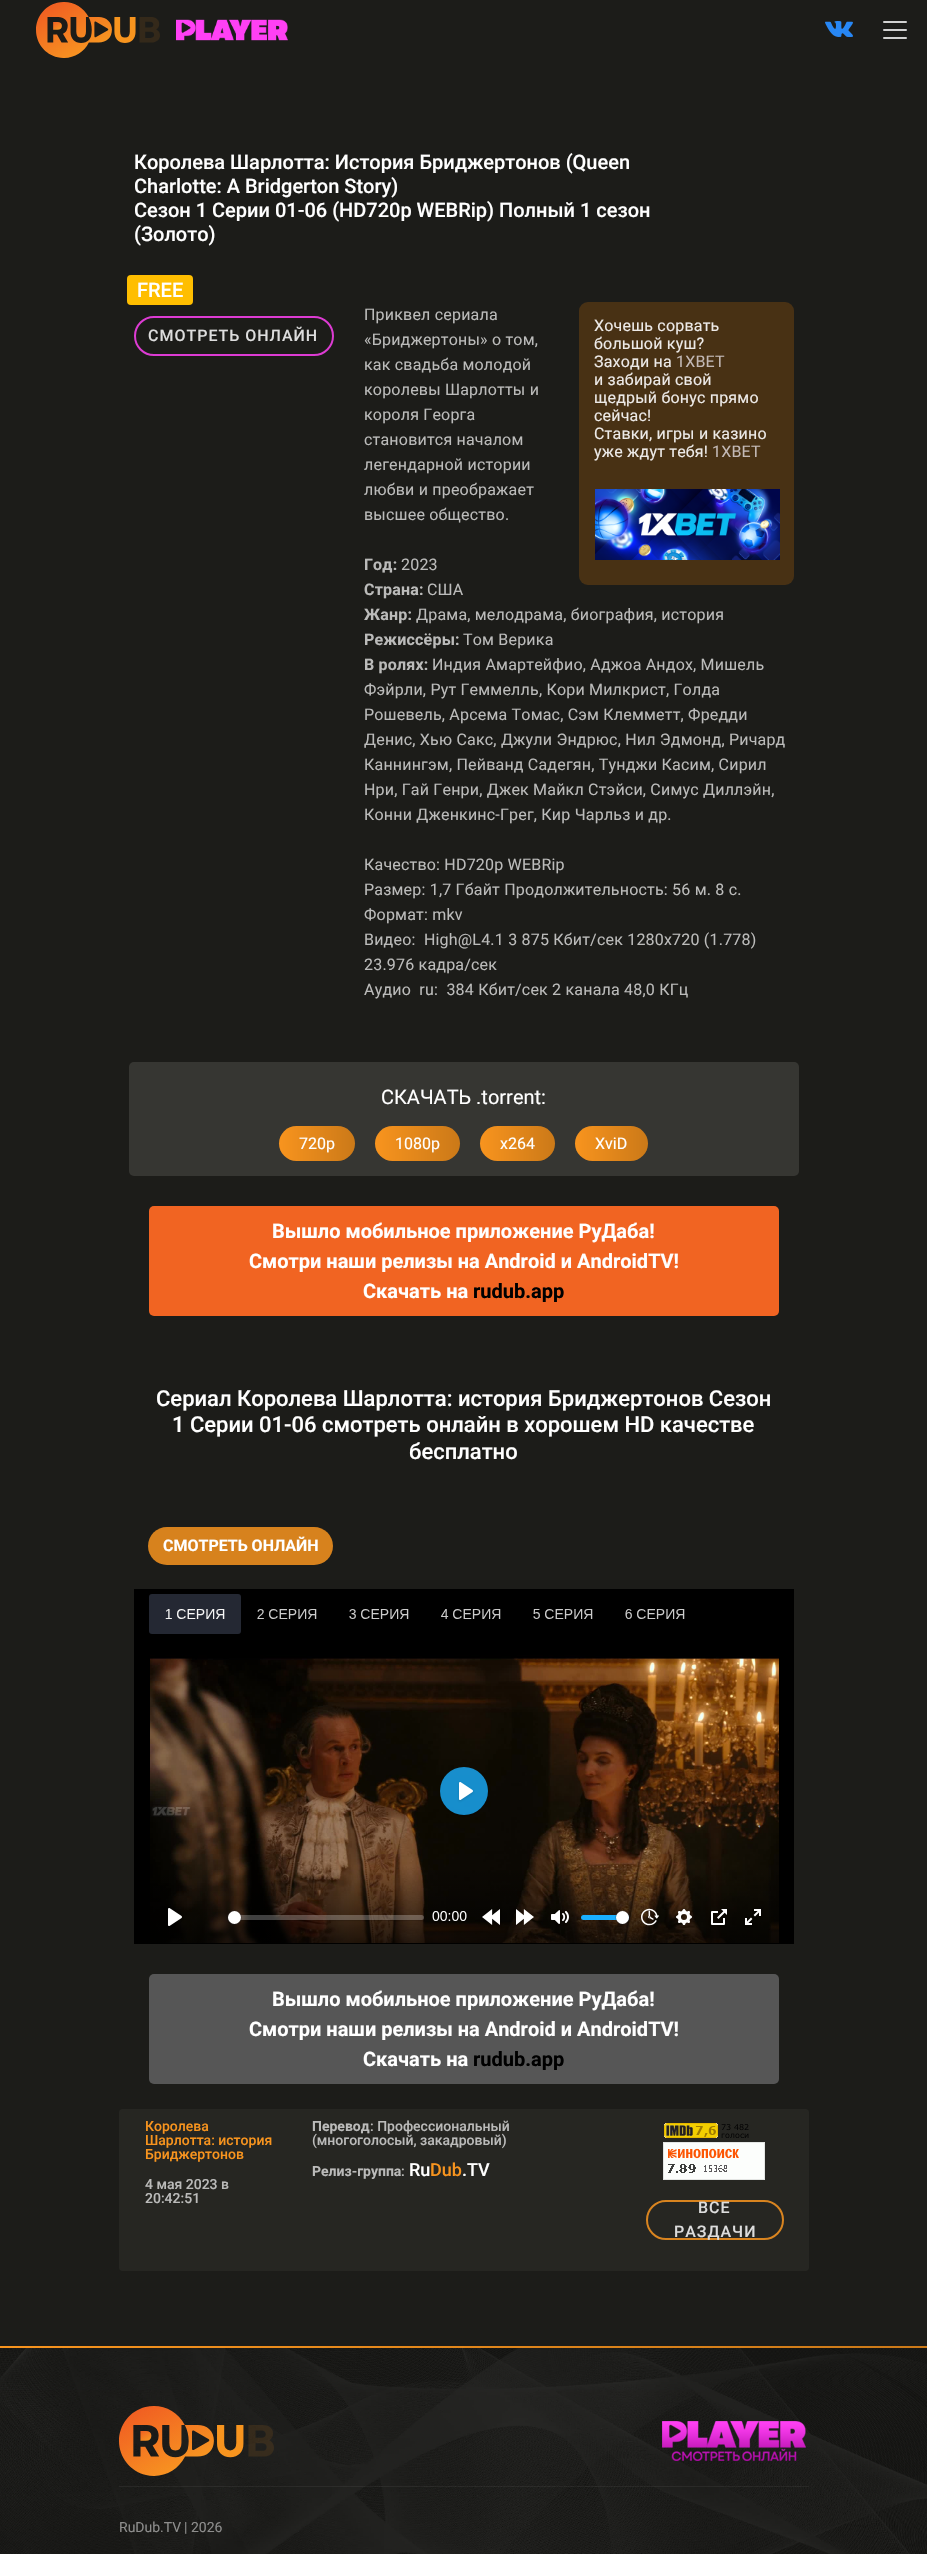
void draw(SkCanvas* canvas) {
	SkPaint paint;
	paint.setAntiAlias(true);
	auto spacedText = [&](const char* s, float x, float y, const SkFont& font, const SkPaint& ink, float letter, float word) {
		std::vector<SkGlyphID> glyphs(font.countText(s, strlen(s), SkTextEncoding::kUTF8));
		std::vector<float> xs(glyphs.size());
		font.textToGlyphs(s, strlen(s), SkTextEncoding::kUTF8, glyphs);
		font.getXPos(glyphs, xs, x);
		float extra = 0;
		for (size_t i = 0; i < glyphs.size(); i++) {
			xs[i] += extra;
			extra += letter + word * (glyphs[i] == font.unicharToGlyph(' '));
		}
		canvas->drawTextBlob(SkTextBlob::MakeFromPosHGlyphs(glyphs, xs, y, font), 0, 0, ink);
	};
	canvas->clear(0xff1c1c19);
	canvas->drawImageRect(SkImages::DeferredFromEncodedData(SkData::MakeFromFileName("img1.png")), SkRect::MakeXYWH(36, 2, 124, 56), SkSamplingOptions());
	canvas->drawImageRect(SkImages::DeferredFromEncodedData(SkData::MakeFromFileName("img2.png")), SkRect::MakeXYWH(176, 19, 112, 22), SkSamplingOptions());
	canvas->drawImageRect(SkImages::DeferredFromEncodedData(SkData::MakeFromFileName("img3.png")), SkRect::MakeXYWH(825, 21, 28, 16), SkSamplingOptions());
	paint.setColor(0xffd2d2d1);
	canvas->drawRoundRect(SkRect::MakeXYWH(883, 21, 24, 2), 1, 1, paint);
	canvas->drawRoundRect(SkRect::MakeXYWH(883, 29, 24, 2), 1, 1, paint);
	canvas->drawRoundRect(SkRect::MakeXYWH(883, 37, 24, 2), 1, 1, paint);
	SkFont f1(fontMgr->matchFamilyStyle("Roboto", SkFontStyle(500, SkFontStyle::kNormal_Width, SkFontStyle::kUpright_Slant)), 20);
	f1.setSubpixel(true);
	paint.setColor(0xffffffff);
	canvas->drawString("Королева Шарлотта: История Бриджертонов (Queen", 134, 169, f1, paint);
	canvas->drawString("Charlotte: A Bridgerton Story)", 134, 193, f1, paint);
	canvas->drawString("Сезон 1 Серии 01-06 (HD720p WEBRip) Полный 1 сезон", 134, 217, f1, paint);
	canvas->drawString("(Золото)", 134, 241, f1, paint);
	paint.setColor(0xffffbe00);
	canvas->drawRoundRect(SkRect::MakeXYWH(127, 275, 66, 30), 4, 4, paint);
	paint.setColor(0xffffffff);
	canvas->drawString("FREE", 137, 297, f1, paint);
	paint.setStroke(true);
	paint.setStrokeWidth(2);
	paint.setColor(0xffdd3bd3);
	canvas->drawRoundRect(SkRect::MakeXYWH(135, 317, 198, 38), 19, 19, paint);
	SkFont f2(fontMgr->matchFamilyStyle("Roboto", SkFontStyle(500, SkFontStyle::kNormal_Width, SkFontStyle::kUpright_Slant)), 16);
	f2.setSubpixel(true);
	paint.setStroke(false);
	paint.setColor(0xffdddddd);
	spacedText("СМОТРЕТЬ ОНЛАЙН", 148, 341, f2, paint, 1, 0);
	SkFont f3(fontMgr->matchFamilyStyle("Roboto", SkFontStyle::Normal()), 16);
	f3.setSubpixel(true);
	paint.setColor(0xffbbbbba);
	spacedText("Приквел сериала", 364, 320, f3, paint, 0.2, 0);
	spacedText("«Бриджертоны» о том,", 364, 345, f3, paint, 0.2, 0);
	spacedText("как свадьба молодой", 364, 370, f3, paint, 0.2, 0);
	spacedText("королевы Шарлотты и", 364, 395, f3, paint, 0.2, 0);
	spacedText("короля Георга", 364, 420, f3, paint, 0.2, 0);
	spacedText("становится началом", 364, 445, f3, paint, 0.2, 0);
	spacedText("легендарной истории", 364, 470, f3, paint, 0.2, 0);
	spacedText("любви и преображает", 364, 495, f3, paint, 0.2, 0);
	spacedText("высшее общество.", 364, 520, f3, paint, 0.2, 0);
	SkFont f4(fontMgr->matchFamilyStyle("Roboto", SkFontStyle::Bold()), 16);
	f4.setSubpixel(true);
	spacedText("Год:", 364, 570, f4, paint, 0.2, 0);
	spacedText("2023", 401, 570, f3, paint, 0.2, 0);
	spacedText("Страна:", 364, 595, f4, paint, 0.2, 0);
	spacedText("США", 427, 595, f3, paint, 0.2, 0);
	spacedText("Жанр:", 364, 620, f4, paint, 0.2, 0);
	spacedText("Драма, мелодрама, биография, история", 416, 620, f3, paint, 0.2, 0);
	spacedText("Режиссёры:", 364, 645, f4, paint, 0.2, 0);
	spacedText("Том Верика", 463, 645, f3, paint, 0.2, 0);
	spacedText("В ролях:", 364, 670, f4, paint, 0.2, 0);
	spacedText("Индия Амартейфио, Аджоа Андох, Мишель", 432, 670, f3, paint, 0.2, 0);
	spacedText("Фэйрли, Рут Геммелль, Кори Милкрист, Голда", 364, 695, f3, paint, 0.2, 0);
	spacedText("Рошевель, Арсема Томас, Сэм Клемметт, Фредди", 364, 720, f3, paint, 0.2, 0);
	spacedText("Денис, Хью Сакс, Джули Эндрюс, Нил Эдмонд, Ричард", 364, 745, f3, paint, 0.2, 0);
	spacedText("Каннингэм, Пейванд Садегян, Тунджи Касим, Сирил", 364, 770, f3, paint, 0.2, 0);
	spacedText("Нри, Гай Генри, Джек Майкл Стэйси, Симус Диллэйн,", 364, 795, f3, paint, 0.2, 0);
	spacedText("Конни Дженкинс-Грег, Кир Чарльз и др.", 364, 820, f3, paint, 0.2, 0);
	spacedText("Качество: HD720p WEBRip", 364, 870, f3, paint, 0.2, 0);
	spacedText("Размер: 1,7 Гбайт Продолжительность: 56 м. 8 с.", 364, 895, f3, paint, 0.2, 0);
	spacedText("Формат: mkv", 364, 920, f3, paint, 0.2, 0);
	spacedText("Видео:  High@L4.1 3 875 Кбит/сек 1280x720 (1.778)", 364, 945, f3, paint, 0.2, 0);
	spacedText("23.976 кадра/сек", 364, 970, f3, paint, 0.2, 0);
	spacedText("Аудио  ru:  384 Кбит/сек 2 канала 48,0 КГц", 364, 995, f3, paint, 0.2, 0);
	paint.setColor(0xff483114);
	canvas->drawRoundRect(SkRect::MakeXYWH(579, 302, 215, 283), 9, 9, paint);
	paint.setColor(0xffedeae8);
	spacedText("Хочешь сорвать", 594, 331, f3, paint, 0.2, 0);
	spacedText("большой куш?", 594, 349, f3, paint, 0.2, 0);
	spacedText("Заходи на", 594, 367, f3, paint, 0.2, 0);
	paint.setColor(0xffc3b9b6);
	spacedText("1XBET", 676, 367, f3, paint, 0.2, 0);
	paint.setColor(0xffedeae8);
	spacedText("и забирай свой", 594, 385, f3, paint, 0.2, 0);
	spacedText("щедрый бонус прямо", 594, 403, f3, paint, 0.2, 0);
	spacedText("сейчас!", 594, 421, f3, paint, 0.2, 0);
	spacedText("Ставки, игры и казино", 594, 439, f3, paint, 0.2, 0);
	spacedText("уже ждут тебя!", 594, 457, f3, paint, 0.2, 0);
	paint.setColor(0xffc3b9b6);
	spacedText("1XBET", 712, 457, f3, paint, 0.2, 0);
	canvas->drawImageRect(SkImages::DeferredFromEncodedData(SkData::MakeFromFileName("img4.png")), SkRect::MakeXYWH(595, 489, 185, 71), SkSamplingOptions());
	paint.setColor(0xff363632);
	canvas->drawRoundRect(SkRect::MakeXYWH(129, 1062, 670, 114), 5, 5, paint);
	SkFont f5(fontMgr->matchFamilyStyle("Roboto", SkFontStyle::Normal()), 20);
	f5.setSubpixel(true);
	paint.setColor(0xffffffff);
	canvas->drawString("СКАЧАТЬ .torrent:", 381, 1104, f5, paint);
	{
		const SkColor colors[] = {0xfff8941e, 0xffcb7918};
		const float stops[] = {0, 1};
		const SkPoint ends[] = {{279, 1144}, {355, 1144}};
		paint.setShader(SkGradientShader::MakeLinear(ends, colors, stops, 2, SkTileMode::kClamp));
		paint.setAlpha(255);
	}
	canvas->drawRoundRect(SkRect::MakeXYWH(279, 1126, 76, 35), 17.5, 17.5, paint);
	paint.setShader(nullptr);
	paint.setColor(0xffffffff);
	canvas->drawString("720p", 299, 1149, f3, paint);
	{
		const SkColor colors[] = {0xfff8941e, 0xffcb7918};
		const float stops[] = {0, 1};
		const SkPoint ends[] = {{375, 1144}, {460, 1144}};
		paint.setShader(SkGradientShader::MakeLinear(ends, colors, stops, 2, SkTileMode::kClamp));
		paint.setAlpha(255);
	}
	canvas->drawRoundRect(SkRect::MakeXYWH(375, 1126, 85, 35), 17.5, 17.5, paint);
	paint.setShader(nullptr);
	paint.setColor(0xffffffff);
	canvas->drawString("1080p", 395, 1149, f3, paint);
	{
		const SkColor colors[] = {0xfff8941e, 0xffcb7918};
		const float stops[] = {0, 1};
		const SkPoint ends[] = {{480, 1144}, {555, 1144}};
		paint.setShader(SkGradientShader::MakeLinear(ends, colors, stops, 2, SkTileMode::kClamp));
		paint.setAlpha(255);
	}
	canvas->drawRoundRect(SkRect::MakeXYWH(480, 1126, 75, 35), 17.5, 17.5, paint);
	paint.setShader(nullptr);
	paint.setColor(0xffffffff);
	canvas->drawString("x264", 500, 1149, f3, paint);
	{
		const SkColor colors[] = {0xfff8941e, 0xffcb7918};
		const float stops[] = {0, 1};
		const SkPoint ends[] = {{575, 1144}, {648, 1144}};
		paint.setShader(SkGradientShader::MakeLinear(ends, colors, stops, 2, SkTileMode::kClamp));
		paint.setAlpha(255);
	}
	canvas->drawRoundRect(SkRect::MakeXYWH(575, 1126, 73, 35), 17.5, 17.5, paint);
	paint.setShader(nullptr);
	paint.setColor(0xffffffff);
	canvas->drawString("XviD", 595, 1149, f3, paint);
	paint.setColor(0xfff16422);
	canvas->drawRoundRect(SkRect::MakeXYWH(149, 1206, 630, 110), 5, 5, paint);
	SkFont f6(fontMgr->matchFamilyStyle("Roboto", SkFontStyle::Bold()), 20);
	f6.setSubpixel(true);
	paint.setColor(0xffffffff);
	canvas->drawString("Вышло мобильное приложение РуДаба!", 272, 1238, f6, paint);
	canvas->drawString("Смотри наши релизы на Android и AndroidTV!", 249, 1268, f6, paint);
	canvas->drawString("Скачать на", 363, 1298, f6, paint);
	paint.setColor(0xff000000);
	canvas->drawString("rudub.app", 473, 1298, f6, paint);
	SkFont f7(fontMgr->matchFamilyStyle("Roboto", SkFontStyle(500, SkFontStyle::kNormal_Width, SkFontStyle::kUpright_Slant)), 22);
	f7.setSubpixel(true);
	paint.setColor(0xffffffff);
	canvas->drawString("Сериал Королева Шарлотта: история Бриджертонов Сезон", 156, 1406, f7, paint);
	canvas->drawString("1 Серии 01-06 смотреть онлайн в хорошем HD качестве", 172, 1432, f7, paint);
	canvas->drawString("бесплатно", 409, 1459, f7, paint);
	paint.setColor(0xffd7821d);
	canvas->drawRoundRect(SkRect::MakeXYWH(148, 1527, 185, 38), 19, 19, paint);
	paint.setColor(0xffffffff);
	canvas->drawString("СМОТРЕТЬ ОНЛАЙН", 163, 1551, f4, paint);
	paint.setColor(0xff000000);
	canvas->drawRect(SkRect::MakeXYWH(134, 1589, 660, 355), paint);
	canvas->drawImageRect(SkImages::DeferredFromEncodedData(SkData::MakeFromFileName("img5.png")), SkRect::MakeXYWH(149, 1594, 630, 349), SkSamplingOptions());
	paint.setColor(0xff565656);
	canvas->drawRoundRect(SkRect::MakeXYWH(149, 1974, 630, 110), 5, 5, paint);
	paint.setColor(0xffffffff);
	canvas->drawString("Вышло мобильное приложение РуДаба!", 272, 2006, f6, paint);
	canvas->drawString("Смотри наши релизы на Android и AndroidTV!", 249, 2036, f6, paint);
	canvas->drawString("Скачать на", 363, 2066, f6, paint);
	paint.setColor(0xff000000);
	canvas->drawString("rudub.app", 473, 2066, f6, paint);
	paint.setColor(0xff262622);
	canvas->drawRoundRect(SkRect::MakeXYWH(119, 2109, 690, 162), 4, 4, paint);
	SkFont f8(fontMgr->matchFamilyStyle("Roboto", SkFontStyle(500, SkFontStyle::kNormal_Width, SkFontStyle::kUpright_Slant)), 14);
	f8.setSubpixel(true);
	paint.setColor(0xfff8941e);
	canvas->drawString("Королева", 145, 2131, f8, paint);
	canvas->drawString("Шарлотта: история", 145, 2145, f8, paint);
	canvas->drawString("Бриджертонов", 145, 2159, f8, paint);
	paint.setColor(0xffbbbbba);
	canvas->drawString("4 мая 2023 в", 145, 2189, f8, paint);
	canvas->drawString("20:42:51", 145, 2203, f8, paint);
	SkFont f9(fontMgr->matchFamilyStyle("Roboto", SkFontStyle::Bold()), 14);
	f9.setSubpixel(true);
	canvas->drawString("Перевод", 312, 2131, f9, paint);
	canvas->drawString(": Профессиональный", 370, 2131, f8, paint);
	canvas->drawString("(многоголосый, закадровый)", 312, 2145, f8, paint);
	canvas->drawString("Релиз-группа", 312, 2176, f9, paint);
	canvas->drawString(":", 401, 2176, f8, paint);
	SkFont f10(fontMgr->matchFamilyStyle("Roboto", SkFontStyle(500, SkFontStyle::kNormal_Width, SkFontStyle::kUpright_Slant)), 18);
	f10.setSubpixel(true);
	paint.setColor(0xffffffff);
	canvas->drawString("Ru", 409, 2176, f10, paint);
	paint.setColor(0xfff8941e);
	canvas->drawString("Dub", 430, 2176, f10, paint);
	paint.setColor(0xffffffff);
	canvas->drawString(".TV", 462, 2176, f10, paint);
	canvas->drawImageRect(SkImages::DeferredFromEncodedData(SkData::MakeFromFileName("img6.png")), SkRect::MakeXYWH(664, 2123, 85, 15), SkSamplingOptions());
	canvas->drawImageRect(SkImages::DeferredFromEncodedData(SkData::MakeFromFileName("img7.png")), SkRect::MakeXYWH(663, 2142, 102, 38), SkSamplingOptions());
	paint.setStroke(true);
	paint.setColor(0xffd9841f);
	canvas->drawRoundRect(SkRect::MakeXYWH(647, 2201, 136, 38), 19, 19, paint);
	paint.setStroke(false);
	paint.setColor(0xffdddddd);
	spacedText("ВСЕ", 698, 2213, f2, paint, 1, 0);
	spacedText("РАЗДАЧИ", 674, 2237, f2, paint, 1, 0);
	canvas->drawImageRect(SkImages::DeferredFromEncodedData(SkData::MakeFromFileName("img8.png")), SkRect::MakeXYWH(0, 2348, 927, 206), SkSamplingOptions());
	{
		const SkColor colors[] = {0xfff8941e, 0xffcb7918};
		const float stops[] = {0, 1};
		const SkPoint ends[] = {{0, 2347}, {927, 2347}};
		paint.setShader(SkGradientShader::MakeLinear(ends, colors, stops, 2, SkTileMode::kClamp));
		paint.setAlpha(255);
	}
	canvas->drawRect(SkRect::MakeXYWH(0, 2346, 927, 2), paint);
	canvas->drawImageRect(SkImages::DeferredFromEncodedData(SkData::MakeFromFileName("img9.png")), SkRect::MakeXYWH(119, 2406, 155, 70), SkSamplingOptions());
	canvas->drawImageRect(SkImages::DeferredFromEncodedData(SkData::MakeFromFileName("img10.png")), SkRect::MakeXYWH(662, 2421, 144, 40), SkSamplingOptions());
	paint.setShader(nullptr);
	paint.setColor(0x0dffffff);
	canvas->drawRect(SkRect::MakeXYWH(119, 2486, 690, 1), paint);
	SkFont f11(fontMgr->matchFamilyStyle("Roboto", SkFontStyle::Normal()), 14);
	f11.setSubpixel(true);
	paint.setColor(0xff8d8d8c);
	canvas->drawString("RuDub.TV", 119, 2532, f11, paint);
	canvas->drawString("| 2026", 184, 2532, f11, paint);
}
